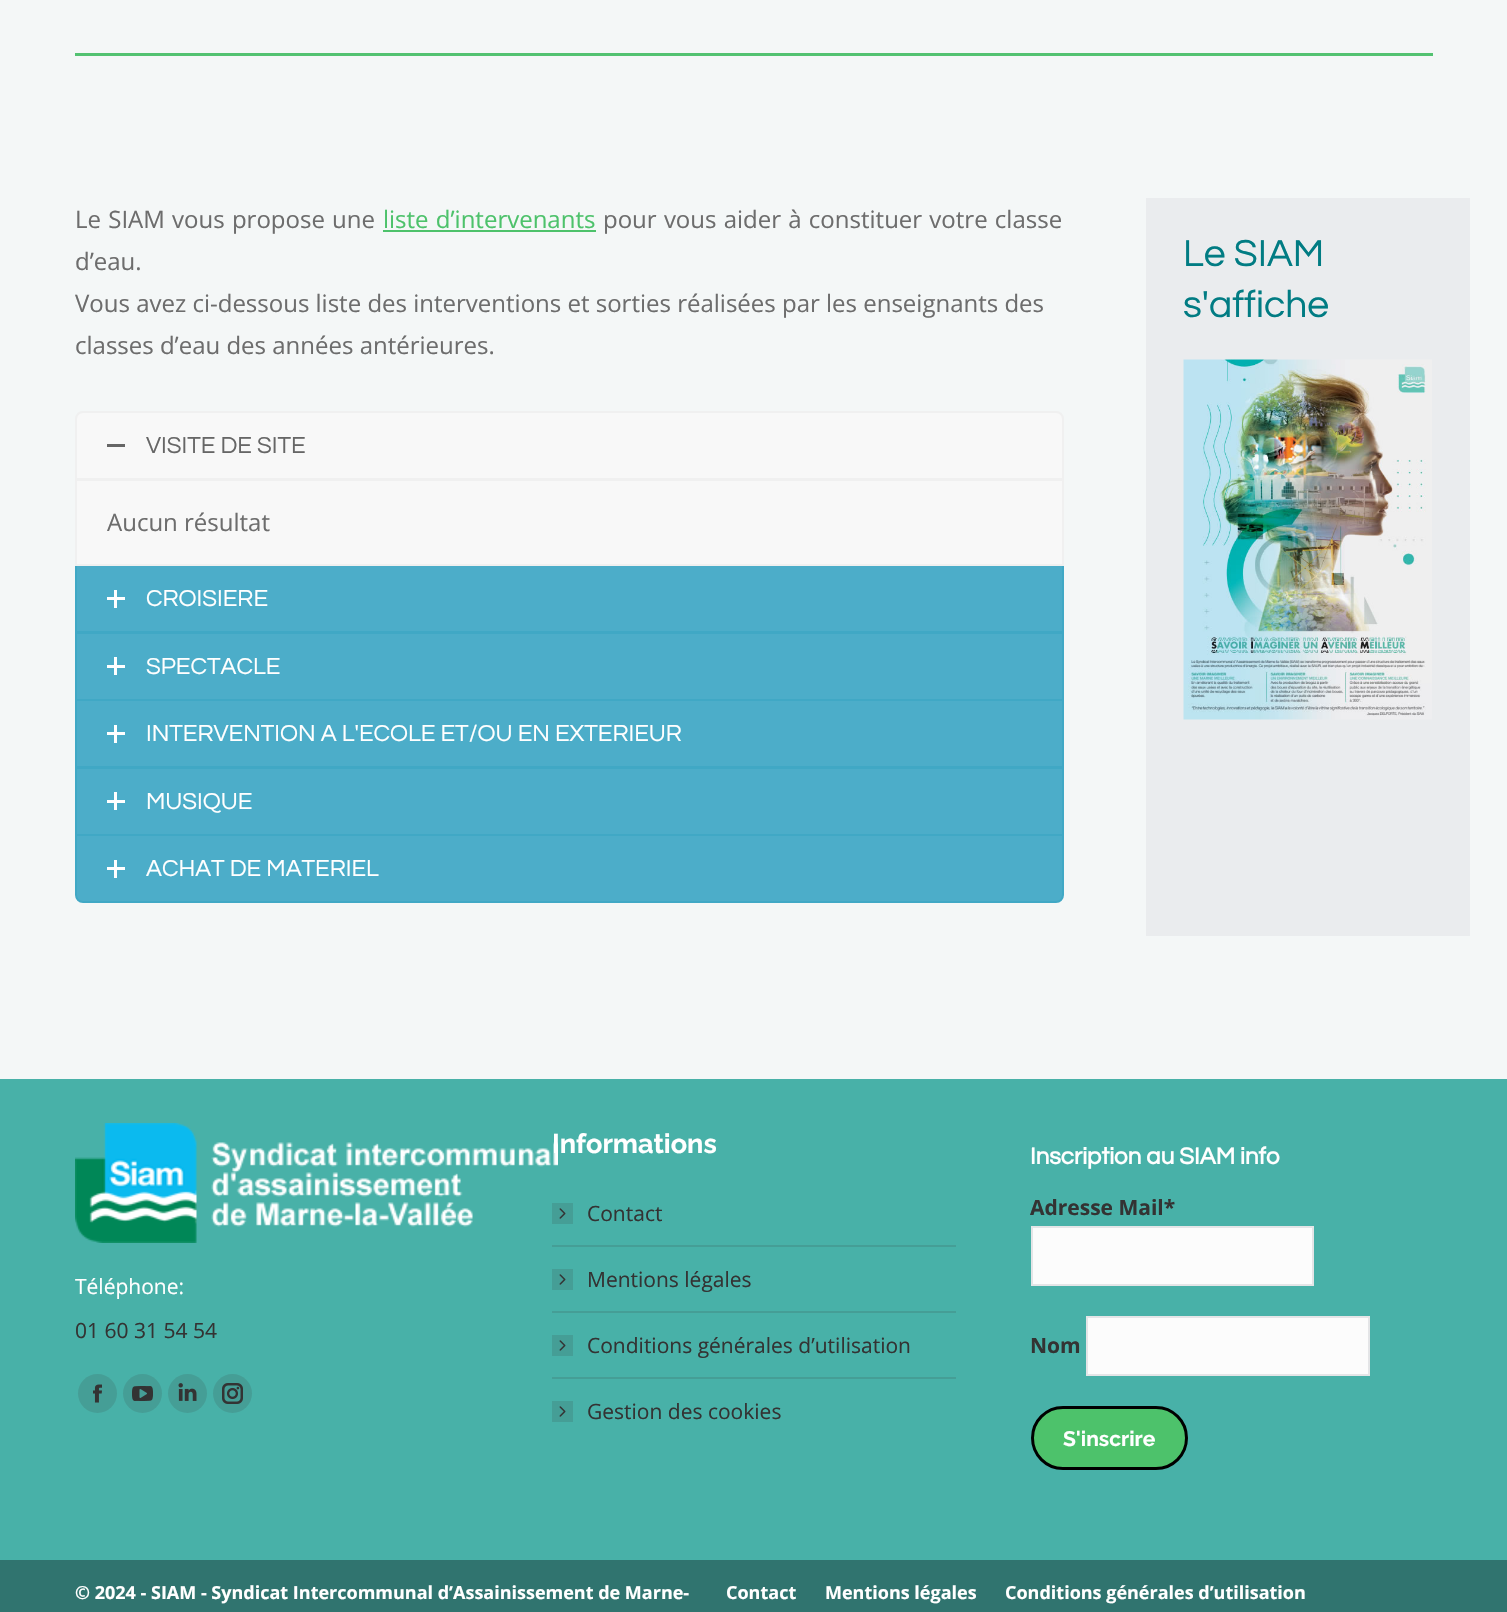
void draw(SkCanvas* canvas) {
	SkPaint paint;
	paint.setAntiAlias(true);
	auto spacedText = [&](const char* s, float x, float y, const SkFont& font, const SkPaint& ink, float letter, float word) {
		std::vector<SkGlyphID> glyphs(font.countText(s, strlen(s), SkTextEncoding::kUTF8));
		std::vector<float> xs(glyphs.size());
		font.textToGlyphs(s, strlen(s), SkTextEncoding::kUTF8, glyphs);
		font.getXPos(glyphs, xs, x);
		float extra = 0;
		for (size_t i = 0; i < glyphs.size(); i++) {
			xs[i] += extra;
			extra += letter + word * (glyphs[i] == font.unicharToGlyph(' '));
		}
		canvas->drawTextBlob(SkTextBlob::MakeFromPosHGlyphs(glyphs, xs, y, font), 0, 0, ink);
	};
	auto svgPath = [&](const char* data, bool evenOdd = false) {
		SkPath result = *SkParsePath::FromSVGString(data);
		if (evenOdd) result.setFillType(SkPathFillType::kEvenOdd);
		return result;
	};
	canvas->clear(0xfff4f7f7);
	paint.setColor(0xff53c271);
	canvas->drawRect(SkRect::MakeXYWH(75, 53, 1358, 3), paint);
	SkFont f1(fontMgr->matchFamilyStyle("Open Sans", SkFontStyle::Normal()), 24);
	f1.setSubpixel(true);
	paint.setColor(0xff6d6d6d);
	spacedText("Le SIAM vous propose une", 75, 228, f1, paint, 0, 1);
	paint.setColor(0xff4dc26b);
	spacedText("liste d’intervenants", 383, 228, f1, paint, 0, 1);
	canvas->drawRect(SkRect::MakeXYWH(383, 230, 213, 2), paint);
	paint.setColor(0xff6d6d6d);
	spacedText("pour vous aider à constituer votre classe", 603, 228, f1, paint, 0, 1);
	canvas->drawString("d’eau.", 75, 270, f1, paint);
	canvas->drawString("Vous avez ci-dessous liste des interventions et sorties réalisées par les enseignants des", 75, 312, f1, paint);
	canvas->drawString("classes d’eau des années antérieures.", 75, 354, f1, paint);
	paint.setColor(0xfff8f8f8);
	canvas->drawPath(svgPath("M83 412H1056C1060 412 1063 415 1063 419V479H76V419C76 415 79 412 83 412Z"), paint);
	paint.setStroke(true);
	paint.setStrokeWidth(2);
	paint.setColor(0xfff0f0f0);
	canvas->drawPath(svgPath("M83 412H1056C1060 412 1063 415 1063 419V479H76V419C76 415 79 412 83 412Z"), paint);
	paint.setStroke(false);
	paint.setColor(0xff666666);
	canvas->drawRect(SkRect::MakeXYWH(107, 444, 18, 3), paint);
	SkFont f2(fontMgr->matchFamilyStyle("Questrial", SkFontStyle::Normal()), 24);
	f2.setSubpixel(true);
	canvas->drawString("VISITE DE SITE", 146, 453, f2, paint);
	paint.setColor(0xff4cadc9);
	canvas->drawRect(SkRect::MakeXYWH(76, 565, 987, 67), paint);
	paint.setStroke(true);
	paint.setColor(0xff40a8c5);
	canvas->drawRect(SkRect::MakeXYWH(76, 565, 987, 67), paint);
	paint.setStroke(false);
	paint.setColor(0xfff8f8f8);
	canvas->drawRect(SkRect::MakeXYWH(76, 480, 987, 85), paint);
	paint.setStroke(true);
	paint.setColor(0xfff0f0f0);
	canvas->drawRect(SkRect::MakeXYWH(76, 480, 987, 85), paint);
	paint.setStroke(false);
	paint.setColor(0xff6d6d6d);
	canvas->drawString("Aucun résultat", 107, 531, f1, paint);
	paint.setColor(0xffffffff);
	canvas->drawRect(SkRect::MakeXYWH(107, 597, 18, 3), paint);
	canvas->drawRect(SkRect::MakeXYWH(114, 590, 3, 18), paint);
	canvas->drawString("CROISIERE", 146, 606, f2, paint);
	paint.setColor(0xff4cadc9);
	canvas->drawRect(SkRect::MakeXYWH(76, 633, 987, 67), paint);
	paint.setStroke(true);
	paint.setColor(0xff40a8c5);
	canvas->drawRect(SkRect::MakeXYWH(76, 633, 987, 67), paint);
	paint.setStroke(false);
	paint.setColor(0xffffffff);
	canvas->drawRect(SkRect::MakeXYWH(107, 665, 18, 3), paint);
	canvas->drawRect(SkRect::MakeXYWH(114, 657, 3, 18), paint);
	canvas->drawString("SPECTACLE", 146, 674, f2, paint);
	paint.setColor(0xff4cadc9);
	canvas->drawRect(SkRect::MakeXYWH(76, 700, 987, 67), paint);
	paint.setStroke(true);
	paint.setColor(0xff40a8c5);
	canvas->drawRect(SkRect::MakeXYWH(76, 700, 987, 67), paint);
	paint.setStroke(false);
	paint.setColor(0xffffffff);
	canvas->drawRect(SkRect::MakeXYWH(107, 732, 18, 3), paint);
	canvas->drawRect(SkRect::MakeXYWH(114, 725, 3, 18), paint);
	canvas->drawString("INTERVENTION A L'ECOLE ET/OU EN EXTERIEUR", 146, 741, f2, paint);
	paint.setColor(0xff4cadc9);
	canvas->drawRect(SkRect::MakeXYWH(76, 768, 987, 67), paint);
	paint.setStroke(true);
	paint.setColor(0xff40a8c5);
	canvas->drawRect(SkRect::MakeXYWH(76, 768, 987, 67), paint);
	paint.setStroke(false);
	paint.setColor(0xffffffff);
	canvas->drawRect(SkRect::MakeXYWH(107, 800, 18, 3), paint);
	canvas->drawRect(SkRect::MakeXYWH(114, 792, 3, 18), paint);
	canvas->drawString("MUSIQUE", 146, 809, f2, paint);
	paint.setColor(0xff4cadc9);
	canvas->drawPath(svgPath("M76 835H1063V895C1063 899 1060 902 1056 902H83C79 902 76 899 76 895Z"), paint);
	paint.setStroke(true);
	paint.setColor(0xff40a8c5);
	canvas->drawPath(svgPath("M76 835H1063V895C1063 899 1060 902 1056 902H83C79 902 76 899 76 895Z"), paint);
	paint.setStroke(false);
	paint.setColor(0xffffffff);
	canvas->drawRect(SkRect::MakeXYWH(107, 867, 18, 3), paint);
	canvas->drawRect(SkRect::MakeXYWH(114, 860, 3, 18), paint);
	canvas->drawString("ACHAT DE MATERIEL", 146, 876, f2, paint);
	paint.setColor(0xffeaecee);
	canvas->drawRect(SkRect::MakeXYWH(1146, 198, 324, 738), paint);
	SkFont f3(fontMgr->matchFamilyStyle("Questrial", SkFontStyle::Normal()), 39);
	f3.setSubpixel(true);
	paint.setColor(0xff017c83);
	canvas->drawString("Le SIAM", 1183, 266, f3, paint);
	canvas->drawString("s'affiche", 1183, 317, f3, paint);
	canvas->drawImageRect(SkImages::DeferredFromEncodedData(SkData::MakeFromFileName("img1.png")), SkRect::MakeXYWH(1183, 359, 249, 361), SkSamplingOptions());
	paint.setColor(0xff48b1a8);
	canvas->drawRect(SkRect::MakeXYWH(0, 1079, 1507, 481), paint);
	canvas->drawImageRect(SkImages::DeferredFromEncodedData(SkData::MakeFromFileName("img2.png")), SkRect::MakeXYWH(75, 1123, 483, 120), SkSamplingOptions());
	SkFont f4(fontMgr->matchFamilyStyle("Open Sans", SkFontStyle::Normal()), 21);
	f4.setSubpixel(true);
	paint.setColor(0xffffffff);
	canvas->drawString("Téléphone:", 75, 1294, f4, paint);
	paint.setColor(0xff333333);
	canvas->drawString("01 60 31 54 54", 75, 1338, f4, paint);
	paint.setColor(0xff459e96);
	canvas->drawCircle(97.5, 1393.5, 19.5, paint);
	canvas->drawImageRect(SkImages::DeferredFromEncodedData(SkData::MakeFromFileName("img3.png")), SkRect::MakeXYWH(93, 1384, 9, 19), SkSamplingOptions());
	canvas->drawCircle(142.5, 1393.5, 19.5, paint);
	canvas->drawImageRect(SkImages::DeferredFromEncodedData(SkData::MakeFromFileName("img4.png")), SkRect::MakeXYWH(132, 1386, 21, 15), SkSamplingOptions());
	canvas->drawCircle(187.5, 1393.5, 19.5, paint);
	canvas->drawImageRect(SkImages::DeferredFromEncodedData(SkData::MakeFromFileName("img5.png")), SkRect::MakeXYWH(178, 1383, 19, 18), SkSamplingOptions());
	canvas->drawCircle(232.5, 1393.5, 19.5, paint);
	canvas->drawImageRect(SkImages::DeferredFromEncodedData(SkData::MakeFromFileName("img6.png")), SkRect::MakeXYWH(222, 1383, 21, 21), SkSamplingOptions());
	SkFont f5(fontMgr->matchFamilyStyle("Raleway", SkFontStyle::Bold()), 27);
	f5.setSubpixel(true);
	paint.setColor(0xffffffff);
	canvas->drawString("Informations", 552, 1153, f5, paint);
	paint.setColor(0xff459e96);
	canvas->drawRect(SkRect::MakeXYWH(552, 1203, 21, 21), paint);
	paint.setColor(0xff333333);
	canvas->drawString("Contact", 587, 1221, f4, paint);
	canvas->drawImageRect(SkImages::DeferredFromEncodedData(SkData::MakeFromFileName("img7.png")), SkRect::MakeXYWH(559, 1208, 7, 11), SkSamplingOptions());
	paint.setColor(0xff459e96);
	canvas->drawRect(SkRect::MakeXYWH(552, 1245, 404, 2), paint);
	canvas->drawRect(SkRect::MakeXYWH(552, 1269, 21, 21), paint);
	paint.setColor(0xff333333);
	canvas->drawString("Mentions légales", 587, 1287, f4, paint);
	canvas->drawImageRect(SkImages::DeferredFromEncodedData(SkData::MakeFromFileName("img7.png")), SkRect::MakeXYWH(559, 1274, 7, 11), SkSamplingOptions());
	paint.setColor(0xff459e96);
	canvas->drawRect(SkRect::MakeXYWH(552, 1311, 404, 2), paint);
	canvas->drawRect(SkRect::MakeXYWH(552, 1335, 21, 21), paint);
	paint.setColor(0xff333333);
	canvas->drawString("Conditions générales d’utilisation", 587, 1353, f4, paint);
	canvas->drawImageRect(SkImages::DeferredFromEncodedData(SkData::MakeFromFileName("img7.png")), SkRect::MakeXYWH(559, 1340, 7, 11), SkSamplingOptions());
	paint.setColor(0xff459e96);
	canvas->drawRect(SkRect::MakeXYWH(552, 1377, 404, 2), paint);
	canvas->drawRect(SkRect::MakeXYWH(552, 1401, 21, 21), paint);
	paint.setColor(0xff333333);
	canvas->drawString("Gestion des cookies", 587, 1419, f4, paint);
	canvas->drawImageRect(SkImages::DeferredFromEncodedData(SkData::MakeFromFileName("img7.png")), SkRect::MakeXYWH(559, 1406, 7, 11), SkSamplingOptions());
	SkFont f6(fontMgr->matchFamilyStyle("Questrial", SkFontStyle::Bold()), 24);
	f6.setSubpixel(true);
	paint.setColor(0xffffffff);
	canvas->drawString("Inscription au SIAM info", 1030, 1164, f6, paint);
	SkFont f7(fontMgr->matchFamilyStyle("Open Sans", SkFontStyle::Bold()), 21);
	f7.setSubpixel(true);
	paint.setColor(0xff333333);
	canvas->drawString("Adresse Mail*", 1030, 1215, f7, paint);
	paint.setColor(0xfffcfcfc);
	canvas->drawRect(SkRect::MakeXYWH(1032, 1227, 281, 58), paint);
	paint.setStroke(true);
	paint.setColor(0xffe4e5e7);
	canvas->drawRect(SkRect::MakeXYWH(1032, 1227, 281, 58), paint);
	paint.setStroke(false);
	paint.setColor(0xff333333);
	canvas->drawString("Nom", 1030, 1353, f7, paint);
	paint.setColor(0xfffcfcfc);
	canvas->drawRect(SkRect::MakeXYWH(1087, 1317, 282, 58), paint);
	paint.setStroke(true);
	paint.setColor(0xffe4e5e7);
	canvas->drawRect(SkRect::MakeXYWH(1087, 1317, 282, 58), paint);
	paint.setStroke(false);
	paint.setColor(0xff4dc26b);
	canvas->drawRoundRect(SkRect::MakeXYWH(1032.5, 1407.5, 154, 61), 30.5, 30.5, paint);
	paint.setStroke(true);
	paint.setStrokeWidth(3);
	paint.setColor(0xff000000);
	canvas->drawRoundRect(SkRect::MakeXYWH(1032.5, 1407.5, 154, 61), 30.5, 30.5, paint);
	SkFont f8(fontMgr->matchFamilyStyle("Raleway", SkFontStyle::Bold()), 21);
	f8.setSubpixel(true);
	paint.setStroke(false);
	paint.setColor(0xffffffff);
	canvas->drawString("S'inscrire", 1063, 1446, f8, paint);
	paint.setColor(0xff30746f);
	canvas->drawRect(SkRect::MakeXYWH(0, 1560, 1507, 52), paint);
	SkFont f9(fontMgr->matchFamilyStyle("Open Sans", SkFontStyle::Bold()), 18);
	f9.setSubpixel(true);
	paint.setColor(0xffffffff);
	canvas->drawString("© 2024 - SIAM - Syndicat Intercommunal d’Assainissement de Marne-", 75, 1599, f9, paint);
	canvas->drawString("Contact", 726, 1599, f9, paint);
	canvas->drawString("Mentions légales", 825, 1599, f9, paint);
	canvas->drawString("Conditions générales d’utilisation", 1005, 1599, f9, paint);
}
